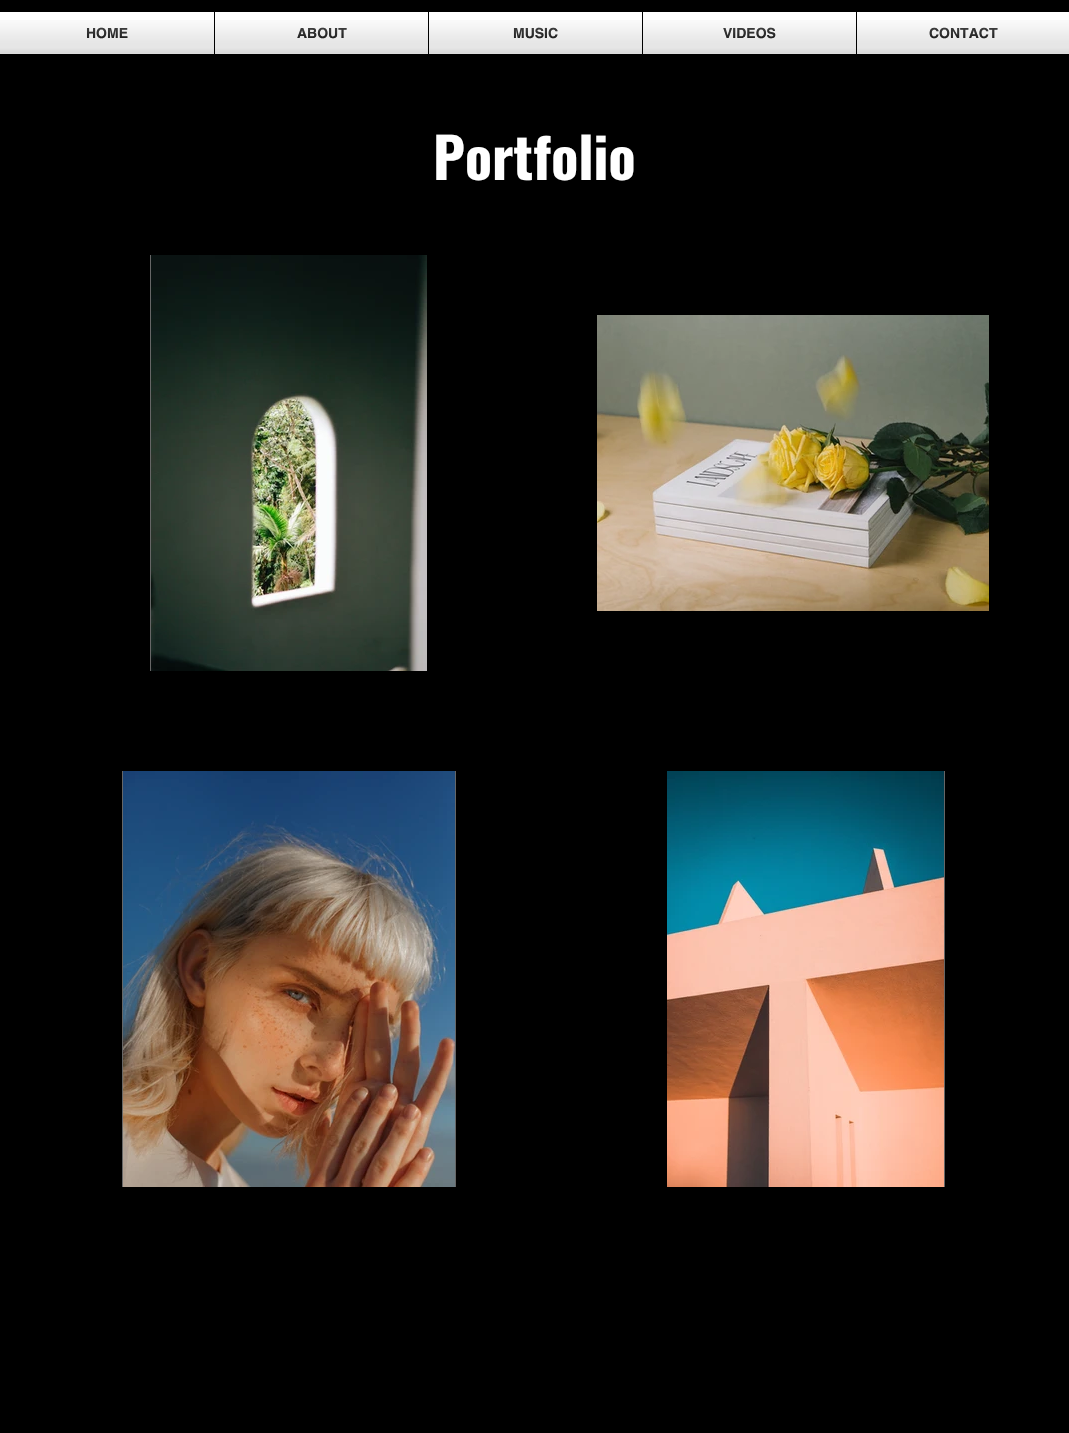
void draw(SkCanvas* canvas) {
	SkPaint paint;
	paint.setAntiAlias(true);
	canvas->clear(0xff000000);
	paint.setColor(0xffffffff);
	canvas->drawRect(SkRect::MakeXYWH(0, 12, 214, 42), paint);
	SkFont f1(fontMgr->matchFamilyStyle("helvetica", SkFontStyle::Bold()), 14);
	f1.setSubpixel(true);
	paint.setColor(0xff000000);
	canvas->drawString("HOME", 86, 38, f1, paint);
	canvas->drawImageRect(SkImages::DeferredFromEncodedData(SkData::MakeFromFileName("img1.png")), SkRect::MakeXYWH(87, 27, 41, 12), SkSamplingOptions());
	canvas->drawImageRect(SkImages::DeferredFromEncodedData(SkData::MakeFromFileName("img2.png")), SkRect::MakeXYWH(0, 20, 214, 34), SkSamplingOptions());
	paint.setColor(0xffffffff);
	canvas->drawRect(SkRect::MakeXYWH(215, 12, 213, 42), paint);
	paint.setColor(0xff000000);
	canvas->drawString("ABOUT", 297, 38, f1, paint);
	canvas->drawImageRect(SkImages::DeferredFromEncodedData(SkData::MakeFromFileName("img3.png")), SkRect::MakeXYWH(297, 27, 50, 12), SkSamplingOptions());
	canvas->drawImageRect(SkImages::DeferredFromEncodedData(SkData::MakeFromFileName("img4.png")), SkRect::MakeXYWH(215, 20, 213, 34), SkSamplingOptions());
	paint.setColor(0xffffffff);
	canvas->drawRect(SkRect::MakeXYWH(429, 12, 213, 42), paint);
	paint.setColor(0xff000000);
	canvas->drawString("MUSIC", 513, 38, f1, paint);
	canvas->drawImageRect(SkImages::DeferredFromEncodedData(SkData::MakeFromFileName("img5.png")), SkRect::MakeXYWH(513, 27, 45, 12), SkSamplingOptions());
	canvas->drawImageRect(SkImages::DeferredFromEncodedData(SkData::MakeFromFileName("img6.png")), SkRect::MakeXYWH(429, 20, 213, 34), SkSamplingOptions());
	paint.setColor(0xffffffff);
	canvas->drawRect(SkRect::MakeXYWH(643, 12, 213, 42), paint);
	paint.setColor(0xff000000);
	canvas->drawString("VIDEOS", 723, 38, f1, paint);
	canvas->drawImageRect(SkImages::DeferredFromEncodedData(SkData::MakeFromFileName("img7.png")), SkRect::MakeXYWH(723, 27, 53, 12), SkSamplingOptions());
	canvas->drawImageRect(SkImages::DeferredFromEncodedData(SkData::MakeFromFileName("img8.png")), SkRect::MakeXYWH(643, 20, 213, 34), SkSamplingOptions());
	paint.setColor(0xffffffff);
	canvas->drawRect(SkRect::MakeXYWH(857, 12, 212, 42), paint);
	paint.setColor(0xff000000);
	canvas->drawString("CONTACT", 929, 38, f1, paint);
	canvas->drawImageRect(SkImages::DeferredFromEncodedData(SkData::MakeFromFileName("img9.png")), SkRect::MakeXYWH(929, 27, 68, 12), SkSamplingOptions());
	canvas->drawImageRect(SkImages::DeferredFromEncodedData(SkData::MakeFromFileName("img10.png")), SkRect::MakeXYWH(857, 20, 212, 34), SkSamplingOptions());
	SkFont f2(fontMgr->matchFamilyStyle("Oswald", SkFontStyle::Bold()), 56);
	f2.setSubpixel(true);
	paint.setColor(0xffffffff);
	canvas->drawString("Portfolio", 433, 180, f2, paint);
	paint.setColor(0xff666666);
	canvas->drawRect(SkRect::MakeXYWH(150, 255, 1, 416), paint);
	canvas->drawImageRect(SkImages::DeferredFromEncodedData(SkData::MakeFromFileName("img11.png")), SkRect::MakeXYWH(151, 255, 276, 416), SkSamplingOptions());
	canvas->drawImageRect(SkImages::DeferredFromEncodedData(SkData::MakeFromFileName("img12.png")), SkRect::MakeXYWH(597, 315, 392, 296), SkSamplingOptions());
	canvas->drawRect(SkRect::MakeXYWH(122, 771, 334, 416), paint);
	canvas->drawImageRect(SkImages::DeferredFromEncodedData(SkData::MakeFromFileName("img13.png")), SkRect::MakeXYWH(123, 771, 332, 416), SkSamplingOptions());
	canvas->drawRect(SkRect::MakeXYWH(944, 771, 1, 416), paint);
	canvas->drawImageRect(SkImages::DeferredFromEncodedData(SkData::MakeFromFileName("img14.png")), SkRect::MakeXYWH(667, 771, 277, 416), SkSamplingOptions());
}
